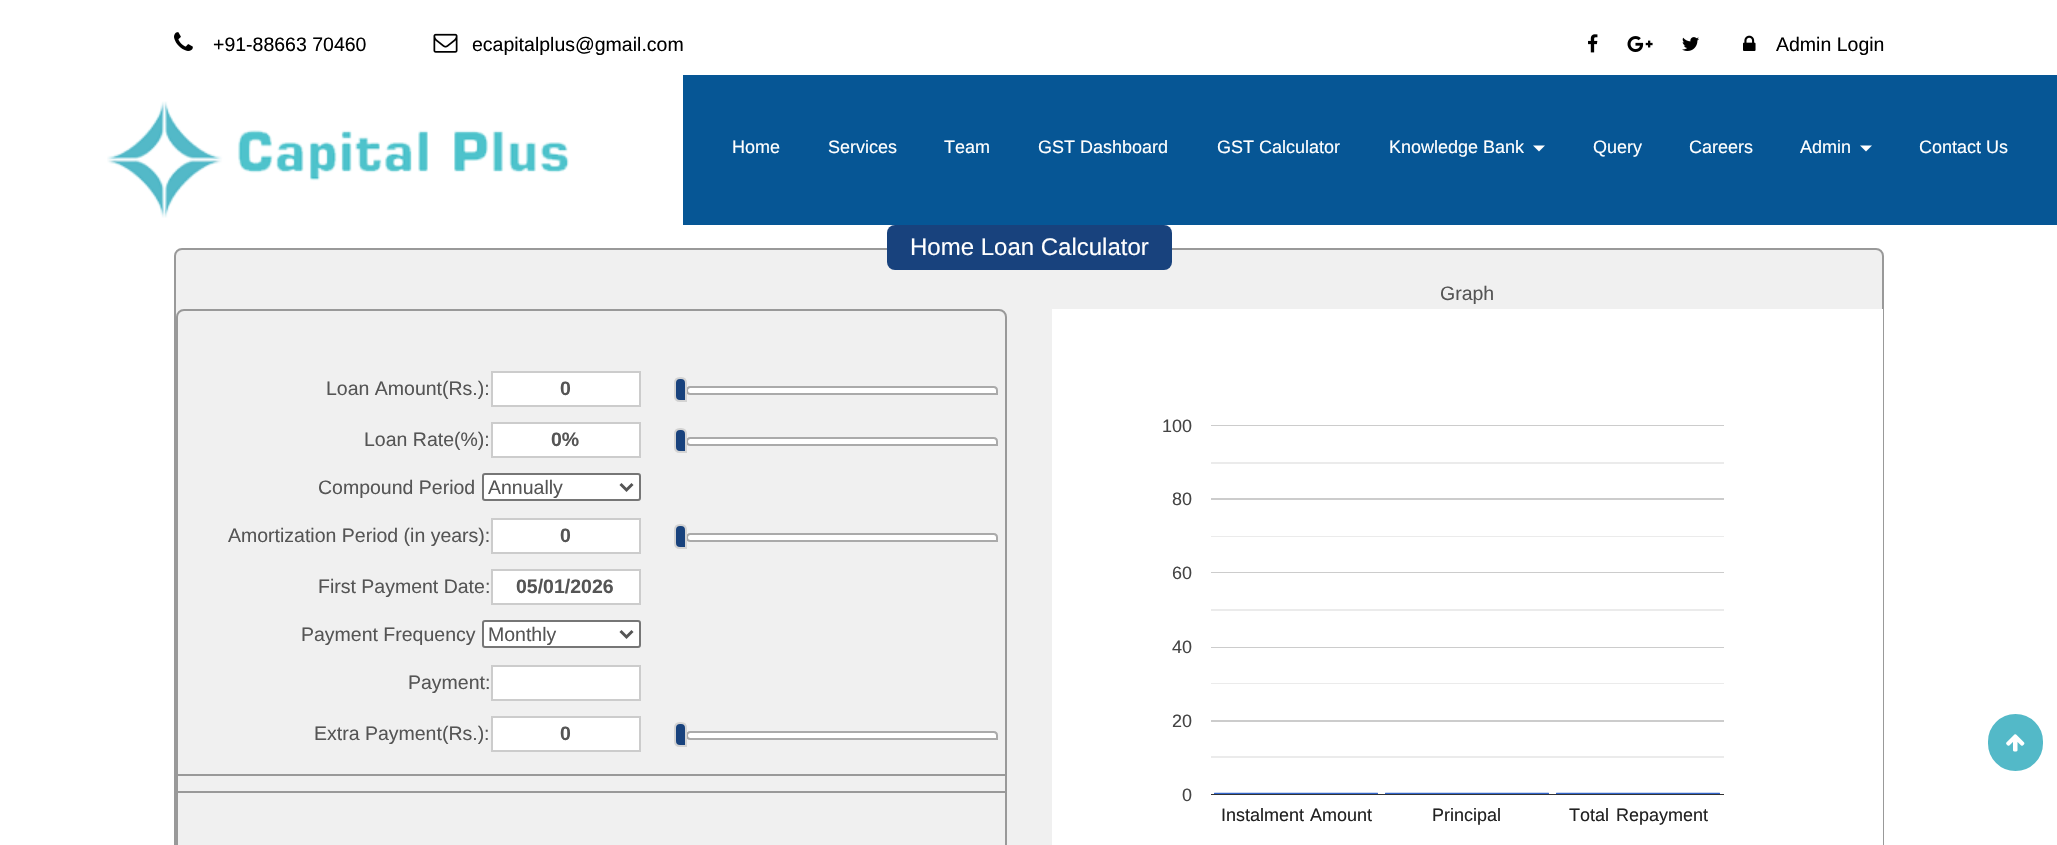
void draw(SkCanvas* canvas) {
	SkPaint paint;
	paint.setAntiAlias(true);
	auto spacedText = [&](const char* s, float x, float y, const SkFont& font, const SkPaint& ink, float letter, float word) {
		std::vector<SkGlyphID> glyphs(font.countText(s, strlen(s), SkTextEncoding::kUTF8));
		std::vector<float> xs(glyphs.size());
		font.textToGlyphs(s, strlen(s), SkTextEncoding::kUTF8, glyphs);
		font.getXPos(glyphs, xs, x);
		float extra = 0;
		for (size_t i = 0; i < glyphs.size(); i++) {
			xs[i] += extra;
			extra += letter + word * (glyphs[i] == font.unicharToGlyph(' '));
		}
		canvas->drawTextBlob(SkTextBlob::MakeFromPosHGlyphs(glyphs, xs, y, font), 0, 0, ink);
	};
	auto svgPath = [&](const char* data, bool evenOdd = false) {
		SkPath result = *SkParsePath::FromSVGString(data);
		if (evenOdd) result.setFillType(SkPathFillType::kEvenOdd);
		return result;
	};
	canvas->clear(0xffffffff);
	canvas->drawImageRect(SkImages::DeferredFromEncodedData(SkData::MakeFromFileName("img1.png")), SkRect::MakeXYWH(174, 32, 19, 19), SkSamplingOptions());
	SkFont f1(fontMgr->matchFamilyStyle("Liberation Sans", SkFontStyle::Normal()), 19.5);
	f1.setSubpixel(true);
	paint.setColor(0xff000000);
	canvas->drawString("+91-88663 70460", 213, 51, f1, paint);
	canvas->drawImageRect(SkImages::DeferredFromEncodedData(SkData::MakeFromFileName("img2.png")), SkRect::MakeXYWH(433, 33, 25, 20), SkSamplingOptions());
	canvas->drawString("ecapitalplus@gmail.com", 472, 51, f1, paint);
	canvas->drawImageRect(SkImages::DeferredFromEncodedData(SkData::MakeFromFileName("img3.png")), SkRect::MakeXYWH(1588, 34, 10, 19), SkSamplingOptions());
	canvas->drawImageRect(SkImages::DeferredFromEncodedData(SkData::MakeFromFileName("img4.png")), SkRect::MakeXYWH(1627, 36, 26, 16), SkSamplingOptions());
	canvas->drawImageRect(SkImages::DeferredFromEncodedData(SkData::MakeFromFileName("img5.png")), SkRect::MakeXYWH(1682, 37, 17, 14), SkSamplingOptions());
	canvas->drawImageRect(SkImages::DeferredFromEncodedData(SkData::MakeFromFileName("img6.png")), SkRect::MakeXYWH(1743, 35, 13, 16), SkSamplingOptions());
	canvas->drawString("Admin Login", 1776, 51, f1, paint);
	canvas->drawImageRect(SkImages::DeferredFromEncodedData(SkData::MakeFromFileName("img7.png")), SkRect::MakeXYWH(107, 101, 462, 117), SkSamplingOptions());
	paint.setColor(0xff065695);
	canvas->drawRect(SkRect::MakeXYWH(683, 75, 1374, 150), paint);
	SkFont f2(fontMgr->matchFamilyStyle("Liberation Sans", SkFontStyle::Normal()), 18);
	f2.setSubpixel(true);
	paint.setColor(0xffffffff);
	canvas->drawString("Home", 732, 153, f2, paint);
	canvas->drawString("Services", 828, 153, f2, paint);
	canvas->drawString("Team", 944, 153, f2, paint);
	canvas->drawString("GST Dashboard", 1038, 153, f2, paint);
	canvas->drawString("GST Calculator", 1217, 153, f2, paint);
	canvas->drawString("Knowledge Bank", 1389, 153, f2, paint);
	canvas->drawPath(svgPath("M1533 145.5H1545L1539 151.5Z"), paint);
	canvas->drawString("Query", 1593, 153, f2, paint);
	canvas->drawString("Careers", 1689, 153, f2, paint);
	canvas->drawString("Admin", 1800, 153, f2, paint);
	canvas->drawPath(svgPath("M1860 145.5H1872L1866 151.5Z"), paint);
	canvas->drawString("Contact Us", 1919, 153, f2, paint);
	paint.setColor(0xfff0f0f0);
	canvas->drawRoundRect(SkRect::MakeXYWH(175, 249, 1708, 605), 7, 7, paint);
	paint.setStroke(true);
	paint.setStrokeWidth(2);
	paint.setColor(0xff999999);
	canvas->drawRoundRect(SkRect::MakeXYWH(175, 249, 1708, 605), 7, 7, paint);
	paint.setStroke(false);
	paint.setColor(0xff18427d);
	canvas->drawRoundRect(SkRect::MakeXYWH(887, 225, 285, 45), 8, 8, paint);
	SkFont f3(fontMgr->matchFamilyStyle("Liberation Sans", SkFontStyle::Normal()), 24);
	f3.setSubpixel(true);
	paint.setColor(0xffffffff);
	canvas->drawString("Home Loan Calculator", 910, 255, f3, paint);
	paint.setStroke(true);
	paint.setColor(0xff999999);
	canvas->drawRoundRect(SkRect::MakeXYWH(177, 310, 829, 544), 7, 7, paint);
	paint.setStroke(false);
	canvas->drawRect(SkRect::MakeXYWH(177, 791, 828, 2), paint);
	canvas->drawRect(SkRect::MakeXYWH(177, 774, 828, 2), paint);
	paint.setColor(0xff555555);
	canvas->drawString("Loan Amount(Rs.):", 326, 395, f1, paint);
	paint.setColor(0xffffffff);
	canvas->drawRect(SkRect::MakeXYWH(492, 372, 148, 34), paint);
	paint.setStroke(true);
	paint.setColor(0xffcccccc);
	canvas->drawRect(SkRect::MakeXYWH(492, 372, 148, 34), paint);
	SkFont f4(fontMgr->matchFamilyStyle("Liberation Sans", SkFontStyle::Bold()), 19.5);
	f4.setSubpixel(true);
	paint.setStroke(false);
	paint.setColor(0xff555555);
	canvas->drawString("0", 560, 395, f4, paint);
	paint.setColor(0xffffffff);
	canvas->drawPath(svgPath("M690.5 387H993.5C995.5 387 997 388.5 997 390.5V394H690.5C688.5 394 687 392.5 687 390.5C687 388.5 688.5 387 690.5 387Z"), paint);
	paint.setStroke(true);
	paint.setColor(0xffaaaaaa);
	canvas->drawPath(svgPath("M690.5 387H993.5C995.5 387 997 388.5 997 390.5V394H690.5C688.5 394 687 392.5 687 390.5C687 388.5 688.5 387 690.5 387Z"), paint);
	paint.setStroke(false);
	paint.setColor(0xff18427d);
	canvas->drawPath(svgPath("M680 378H681C684 378 686 380 686 383V401H680C677 401 675 399 675 396V383C675 380 677 378 680 378Z"), paint);
	paint.setStroke(true);
	paint.setColor(0xffd3d3d3);
	canvas->drawPath(svgPath("M680 378H681C684 378 686 380 686 383V401H680C677 401 675 399 675 396V383C675 380 677 378 680 378Z"), paint);
	paint.setStroke(false);
	paint.setColor(0xff555555);
	canvas->drawString("Loan Rate(%):", 364, 446, f1, paint);
	paint.setColor(0xffffffff);
	canvas->drawRect(SkRect::MakeXYWH(492, 423, 148, 34), paint);
	paint.setStroke(true);
	paint.setColor(0xffcccccc);
	canvas->drawRect(SkRect::MakeXYWH(492, 423, 148, 34), paint);
	paint.setStroke(false);
	paint.setColor(0xff555555);
	canvas->drawString("0%", 551, 446, f4, paint);
	paint.setColor(0xffffffff);
	canvas->drawPath(svgPath("M690.5 438H993.5C995.5 438 997 439.5 997 441.5V445H690.5C688.5 445 687 443.5 687 441.5C687 439.5 688.5 438 690.5 438Z"), paint);
	paint.setStroke(true);
	paint.setColor(0xffaaaaaa);
	canvas->drawPath(svgPath("M690.5 438H993.5C995.5 438 997 439.5 997 441.5V445H690.5C688.5 445 687 443.5 687 441.5C687 439.5 688.5 438 690.5 438Z"), paint);
	paint.setStroke(false);
	paint.setColor(0xff18427d);
	canvas->drawPath(svgPath("M680 429H681C684 429 686 431 686 434V452H680C677 452 675 450 675 447V434C675 431 677 429 680 429Z"), paint);
	paint.setStroke(true);
	paint.setColor(0xffd3d3d3);
	canvas->drawPath(svgPath("M680 429H681C684 429 686 431 686 434V452H680C677 452 675 450 675 447V434C675 431 677 429 680 429Z"), paint);
	paint.setStroke(false);
	paint.setColor(0xff555555);
	canvas->drawString("Compound Period", 318, 494, f1, paint);
	paint.setColor(0xffffffff);
	canvas->drawRoundRect(SkRect::MakeXYWH(483, 474, 157, 26), 2, 2, paint);
	paint.setStroke(true);
	paint.setColor(0xff767676);
	canvas->drawRoundRect(SkRect::MakeXYWH(483, 474, 157, 26), 2, 2, paint);
	paint.setStrokeWidth(3);
	paint.setColor(0xff555555);
	canvas->drawPath(svgPath("M620.5 484L626.5 490L632.5 484"), paint);
	paint.setStroke(false);
	canvas->drawString("Annually", 488, 494, f1, paint);
	canvas->drawString("Amortization Period (in years):", 228, 542, f1, paint);
	paint.setColor(0xffffffff);
	canvas->drawRect(SkRect::MakeXYWH(492, 519, 148, 34), paint);
	paint.setStroke(true);
	paint.setStrokeWidth(2);
	paint.setColor(0xffcccccc);
	canvas->drawRect(SkRect::MakeXYWH(492, 519, 148, 34), paint);
	paint.setStroke(false);
	paint.setColor(0xff555555);
	canvas->drawString("0", 560, 542, f4, paint);
	paint.setColor(0xffffffff);
	canvas->drawPath(svgPath("M690.5 534H993.5C995.5 534 997 535.5 997 537.5V541H690.5C688.5 541 687 539.5 687 537.5C687 535.5 688.5 534 690.5 534Z"), paint);
	paint.setStroke(true);
	paint.setColor(0xffaaaaaa);
	canvas->drawPath(svgPath("M690.5 534H993.5C995.5 534 997 535.5 997 537.5V541H690.5C688.5 541 687 539.5 687 537.5C687 535.5 688.5 534 690.5 534Z"), paint);
	paint.setStroke(false);
	paint.setColor(0xff18427d);
	canvas->drawPath(svgPath("M680 525H681C684 525 686 527 686 530V548H680C677 548 675 546 675 543V530C675 527 677 525 680 525Z"), paint);
	paint.setStroke(true);
	paint.setColor(0xffd3d3d3);
	canvas->drawPath(svgPath("M680 525H681C684 525 686 527 686 530V548H680C677 548 675 546 675 543V530C675 527 677 525 680 525Z"), paint);
	paint.setStroke(false);
	paint.setColor(0xff555555);
	canvas->drawString("First Payment Date:", 318, 593, f1, paint);
	paint.setColor(0xffffffff);
	canvas->drawRect(SkRect::MakeXYWH(492, 570, 148, 34), paint);
	paint.setStroke(true);
	paint.setColor(0xffcccccc);
	canvas->drawRect(SkRect::MakeXYWH(492, 570, 148, 34), paint);
	paint.setStroke(false);
	paint.setColor(0xff555555);
	canvas->drawString("05/01/2026", 516, 593, f4, paint);
	canvas->drawString("Payment Frequency", 301, 641, f1, paint);
	paint.setColor(0xffffffff);
	canvas->drawRoundRect(SkRect::MakeXYWH(483, 621, 157, 26), 2, 2, paint);
	paint.setStroke(true);
	paint.setColor(0xff767676);
	canvas->drawRoundRect(SkRect::MakeXYWH(483, 621, 157, 26), 2, 2, paint);
	paint.setStrokeWidth(3);
	paint.setColor(0xff555555);
	canvas->drawPath(svgPath("M620.5 631L626.5 637L632.5 631"), paint);
	paint.setStroke(false);
	canvas->drawString("Monthly", 488, 641, f1, paint);
	canvas->drawString("Payment:", 408, 689, f1, paint);
	paint.setColor(0xffffffff);
	canvas->drawRect(SkRect::MakeXYWH(492, 666, 148, 34), paint);
	paint.setStroke(true);
	paint.setStrokeWidth(2);
	paint.setColor(0xffcccccc);
	canvas->drawRect(SkRect::MakeXYWH(492, 666, 148, 34), paint);
	paint.setStroke(false);
	paint.setColor(0xff555555);
	canvas->drawString("Extra Payment(Rs.):", 314, 740, f1, paint);
	paint.setColor(0xffffffff);
	canvas->drawRect(SkRect::MakeXYWH(492, 717, 148, 34), paint);
	paint.setStroke(true);
	paint.setColor(0xffcccccc);
	canvas->drawRect(SkRect::MakeXYWH(492, 717, 148, 34), paint);
	paint.setStroke(false);
	paint.setColor(0xff555555);
	canvas->drawString("0", 560, 740, f4, paint);
	paint.setColor(0xffffffff);
	canvas->drawPath(svgPath("M690.5 732H993.5C995.5 732 997 733.5 997 735.5V739H690.5C688.5 739 687 737.5 687 735.5C687 733.5 688.5 732 690.5 732Z"), paint);
	paint.setStroke(true);
	paint.setColor(0xffaaaaaa);
	canvas->drawPath(svgPath("M690.5 732H993.5C995.5 732 997 733.5 997 735.5V739H690.5C688.5 739 687 737.5 687 735.5C687 733.5 688.5 732 690.5 732Z"), paint);
	paint.setStroke(false);
	paint.setColor(0xff18427d);
	canvas->drawPath(svgPath("M680 723H681C684 723 686 725 686 728V746H680C677 746 675 744 675 741V728C675 725 677 723 680 723Z"), paint);
	paint.setStroke(true);
	paint.setColor(0xffd3d3d3);
	canvas->drawPath(svgPath("M680 723H681C684 723 686 725 686 728V746H680C677 746 675 744 675 741V728C675 725 677 723 680 723Z"), paint);
	paint.setStroke(false);
	paint.setColor(0xff555555);
	canvas->drawString("Graph", 1440, 300, f1, paint);
	canvas->drawImageRect(SkImages::DeferredFromEncodedData(SkData::MakeFromFileName("img8.png")), SkRect::MakeXYWH(1052, 309, 831, 536), SkSamplingOptions());
	paint.setColor(0xff444444);
	canvas->drawString("100", 1162, 432, f2, paint);
	canvas->drawString("80", 1172, 505, f2, paint);
	canvas->drawString("60", 1172, 579, f2, paint);
	canvas->drawString("40", 1172, 653, f2, paint);
	canvas->drawString("20", 1172, 727, f2, paint);
	canvas->drawString("0", 1182, 801, f2, paint);
	paint.setColor(0xff222222);
	spacedText("Instalment Amount", 1221, 821, f2, paint, 0, 1);
	canvas->drawString("Principal", 1432, 821, f2, paint);
	spacedText("Total Repayment", 1569, 821, f2, paint, 0, 2);
	paint.setColor(0xff53b9c8);
	canvas->drawRoundRect(SkRect::MakeXYWH(1989.5, 715.5, 52, 54), 26, 26, paint);
	paint.setStroke(true);
	paint.setStrokeWidth(3);
	canvas->drawRoundRect(SkRect::MakeXYWH(1989.5, 715.5, 52, 54), 26, 26, paint);
	canvas->drawImageRect(SkImages::DeferredFromEncodedData(SkData::MakeFromFileName("img9.png")), SkRect::MakeXYWH(2006, 734, 19, 18), SkSamplingOptions());
}
